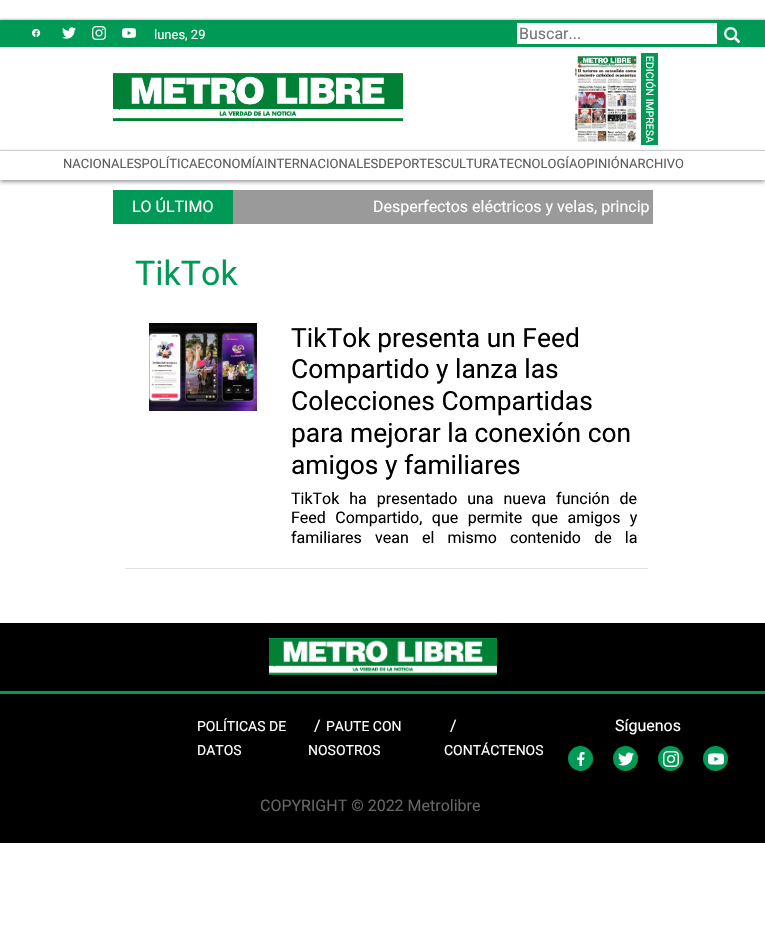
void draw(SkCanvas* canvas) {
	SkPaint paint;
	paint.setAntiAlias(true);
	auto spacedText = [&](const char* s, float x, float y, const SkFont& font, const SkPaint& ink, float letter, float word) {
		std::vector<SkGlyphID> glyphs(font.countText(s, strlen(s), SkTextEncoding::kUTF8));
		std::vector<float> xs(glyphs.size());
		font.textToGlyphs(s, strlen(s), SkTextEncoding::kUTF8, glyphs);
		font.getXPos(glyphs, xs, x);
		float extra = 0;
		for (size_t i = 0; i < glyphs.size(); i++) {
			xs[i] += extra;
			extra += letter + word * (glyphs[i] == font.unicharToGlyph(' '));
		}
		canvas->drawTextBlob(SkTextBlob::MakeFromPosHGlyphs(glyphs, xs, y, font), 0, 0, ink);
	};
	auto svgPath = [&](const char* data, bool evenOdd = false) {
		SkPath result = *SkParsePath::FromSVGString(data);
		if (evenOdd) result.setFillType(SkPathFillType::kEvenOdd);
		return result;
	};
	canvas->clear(0xffffffff);
	paint.setColor(0x80858585);
	paint.setMaskFilter(SkMaskFilter::MakeBlur(kNormal_SkBlurStyle, 1));
	canvas->drawRect(SkRect::MakeXYWH(0, 19, 765, 27), paint);
	paint.setMaskFilter(nullptr);
	paint.setColor(0xff009a56);
	canvas->drawRect(SkRect::MakeXYWH(0, 20, 765, 27), paint);
	canvas->drawImageRect(SkImages::DeferredFromEncodedData(SkData::MakeFromFileName("img1.png")), SkRect::MakeXYWH(32, 28, 9, 9), SkSamplingOptions());
	canvas->drawImageRect(SkImages::DeferredFromEncodedData(SkData::MakeFromFileName("img2.png")), SkRect::MakeXYWH(62, 27, 14, 12), SkSamplingOptions());
	canvas->drawImageRect(SkImages::DeferredFromEncodedData(SkData::MakeFromFileName("img3.png")), SkRect::MakeXYWH(92, 26, 14, 14), SkSamplingOptions());
	canvas->drawImageRect(SkImages::DeferredFromEncodedData(SkData::MakeFromFileName("img4.png")), SkRect::MakeXYWH(122, 28, 14, 10), SkSamplingOptions());
	SkFont f1(fontMgr->matchFamilyStyle("Roboto", SkFontStyle::Normal()), 13);
	f1.setSubpixel(true);
	paint.setColor(0xffffffff);
	canvas->drawString("lunes, 29", 154, 39, f1, paint);
	canvas->drawRect(SkRect::MakeXYWH(517, 23, 200, 21), paint);
	SkFont f2(fontMgr->matchFamilyStyle("Roboto", SkFontStyle::Normal()), 16);
	f2.setSubpixel(true);
	paint.setColor(0xff757575);
	canvas->drawString("Buscar...", 519, 39, f2, paint);
	canvas->drawImageRect(SkImages::DeferredFromEncodedData(SkData::MakeFromFileName("img5.png")), SkRect::MakeXYWH(724, 27, 17, 17), SkSamplingOptions());
	canvas->drawImageRect(SkImages::DeferredFromEncodedData(SkData::MakeFromFileName("img6.png")), SkRect::MakeXYWH(113, 73, 290, 48), SkSamplingOptions());
	canvas->drawImageRect(SkImages::DeferredFromEncodedData(SkData::MakeFromFileName("img7.png")), SkRect::MakeXYWH(575, 56, 62, 86), SkSamplingOptions());
	paint.setColor(0xff009a56);
	canvas->drawRect(SkRect::MakeXYWH(641, 53, 17, 92), paint);
	SkFont f3(fontMgr->matchFamilyStyle("Roboto", SkFontStyle::Normal()), 10.5);
	f3.setSubpixel(true);
	paint.setColor(0xffffffff);
	canvas->save();
	canvas->rotate(90, 646, 56);
	canvas->drawString("EDICIÓN IMPRESA", 646, 56, f3, paint);
	canvas->restore();
	canvas->save();
	canvas->clipPath(svgPath("M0 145H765V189H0ZM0 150H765V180H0Z", true), true);
	paint.setColor(0xcc858585);
	paint.setMaskFilter(SkMaskFilter::MakeBlur(kNormal_SkBlurStyle, 2));
	canvas->drawRect(SkRect::MakeXYWH(0, 152, 765, 30), paint);
	paint.setMaskFilter(nullptr);
	canvas->restore();
	paint.setColor(0xffcccccc);
	canvas->drawRect(SkRect::MakeXYWH(0, 150, 765, 1), paint);
	paint.setColor(0xff5e5c5c);
	canvas->drawString("NACIONALESPOLÍTICAECONOMÍAINTERNACIONALESDEPORTESCULTURATECNOLOGÍAOPINIÓNARCHIVO", 63, 168, f1, paint);
	paint.setColor(0xff9a9a9a);
	canvas->drawRect(SkRect::MakeXYWH(233, 190, 420, 34), paint);
	paint.setColor(0xff009a56);
	canvas->drawRect(SkRect::MakeXYWH(113, 190, 120, 34), paint);
	paint.setColor(0xffffffff);
	canvas->drawString("LO ÚLTIMO", 132, 212, f2, paint);
	canvas->drawString("Desperfectos eléctricos y velas, princip", 373, 212, f2, paint);
	SkFont f4(fontMgr->matchFamilyStyle("Roboto", SkFontStyle::Normal()), 34);
	f4.setSubpixel(true);
	paint.setColor(0xff009a56);
	canvas->drawString("TikTok", 135, 285, f4, paint);
	paint.setColor(0xffe2e2e2);
	canvas->drawRect(SkRect::MakeXYWH(125, 568, 523, 1), paint);
	canvas->drawImageRect(SkImages::DeferredFromEncodedData(SkData::MakeFromFileName("img8.png")), SkRect::MakeXYWH(149, 323, 108, 88), SkSamplingOptions());
	SkFont f5(fontMgr->matchFamilyStyle("Roboto", SkFontStyle::Normal()), 26.4);
	f5.setSubpixel(true);
	paint.setColor(0xff000000);
	canvas->drawString("TikTok presenta un Feed", 291, 347, f5, paint);
	canvas->drawString("Compartido y lanza las", 291, 378, f5, paint);
	canvas->drawString("Colecciones Compartidas", 291, 410, f5, paint);
	canvas->drawString("para mejorar la conexión con", 291, 442, f5, paint);
	canvas->drawString("amigos y familiares", 291, 474, f5, paint);
	spacedText("TikTok ha presentado una nueva función de", 291, 504, f2, paint, 0, 6);
	spacedText("Feed Compartido, que permite que amigos y", 291, 523, f2, paint, 0, 5.5);
	spacedText("familiares vean el mismo contenido de la", 291, 543, f2, paint, 0, 9.25);
	canvas->drawRect(SkRect::MakeXYWH(0, 623, 765, 220), paint);
	paint.setColor(0xff009a56);
	canvas->drawRect(SkRect::MakeXYWH(0, 691, 765, 3), paint);
	canvas->drawImageRect(SkImages::DeferredFromEncodedData(SkData::MakeFromFileName("img9.png")), SkRect::MakeXYWH(269, 638, 228, 37), SkSamplingOptions());
	SkFont f6(fontMgr->matchFamilyStyle("Roboto", SkFontStyle::Normal()), 14);
	f6.setSubpixel(true);
	paint.setColor(0xffffffff);
	canvas->drawString("POLÍTICAS DE", 197, 731, f6, paint);
	canvas->drawString("DATOS", 197, 755, f6, paint);
	canvas->drawString("/", 314, 731, f2, paint);
	canvas->drawString("PAUTE CON", 326, 731, f6, paint);
	canvas->drawString("NOSOTROS", 308, 755, f6, paint);
	canvas->drawString("/", 450, 731, f2, paint);
	canvas->drawString("CONTÁCTENOS", 444, 755, f6, paint);
	canvas->drawString("Síguenos", 615, 731, f2, paint);
	paint.setColor(0xff009a56);
	canvas->drawCircle(580.5, 758.5, 12.5, paint);
	canvas->drawImageRect(SkImages::DeferredFromEncodedData(SkData::MakeFromFileName("img10.png")), SkRect::MakeXYWH(577, 752, 8, 14), SkSamplingOptions());
	canvas->drawCircle(625.5, 758.5, 12.5, paint);
	canvas->drawImageRect(SkImages::DeferredFromEncodedData(SkData::MakeFromFileName("img11.png")), SkRect::MakeXYWH(618, 752, 16, 14), SkSamplingOptions());
	canvas->drawCircle(670.5, 758.5, 12.5, paint);
	canvas->drawImageRect(SkImages::DeferredFromEncodedData(SkData::MakeFromFileName("img12.png")), SkRect::MakeXYWH(663, 751, 16, 16), SkSamplingOptions());
	canvas->drawCircle(715.5, 758.5, 12.5, paint);
	canvas->drawImageRect(SkImages::DeferredFromEncodedData(SkData::MakeFromFileName("img13.png")), SkRect::MakeXYWH(708, 753, 16, 12), SkSamplingOptions());
	paint.setColor(0xff666666);
	canvas->drawString("COPYRIGHT © 2022 Metrolibre", 260, 811, f2, paint);
}
